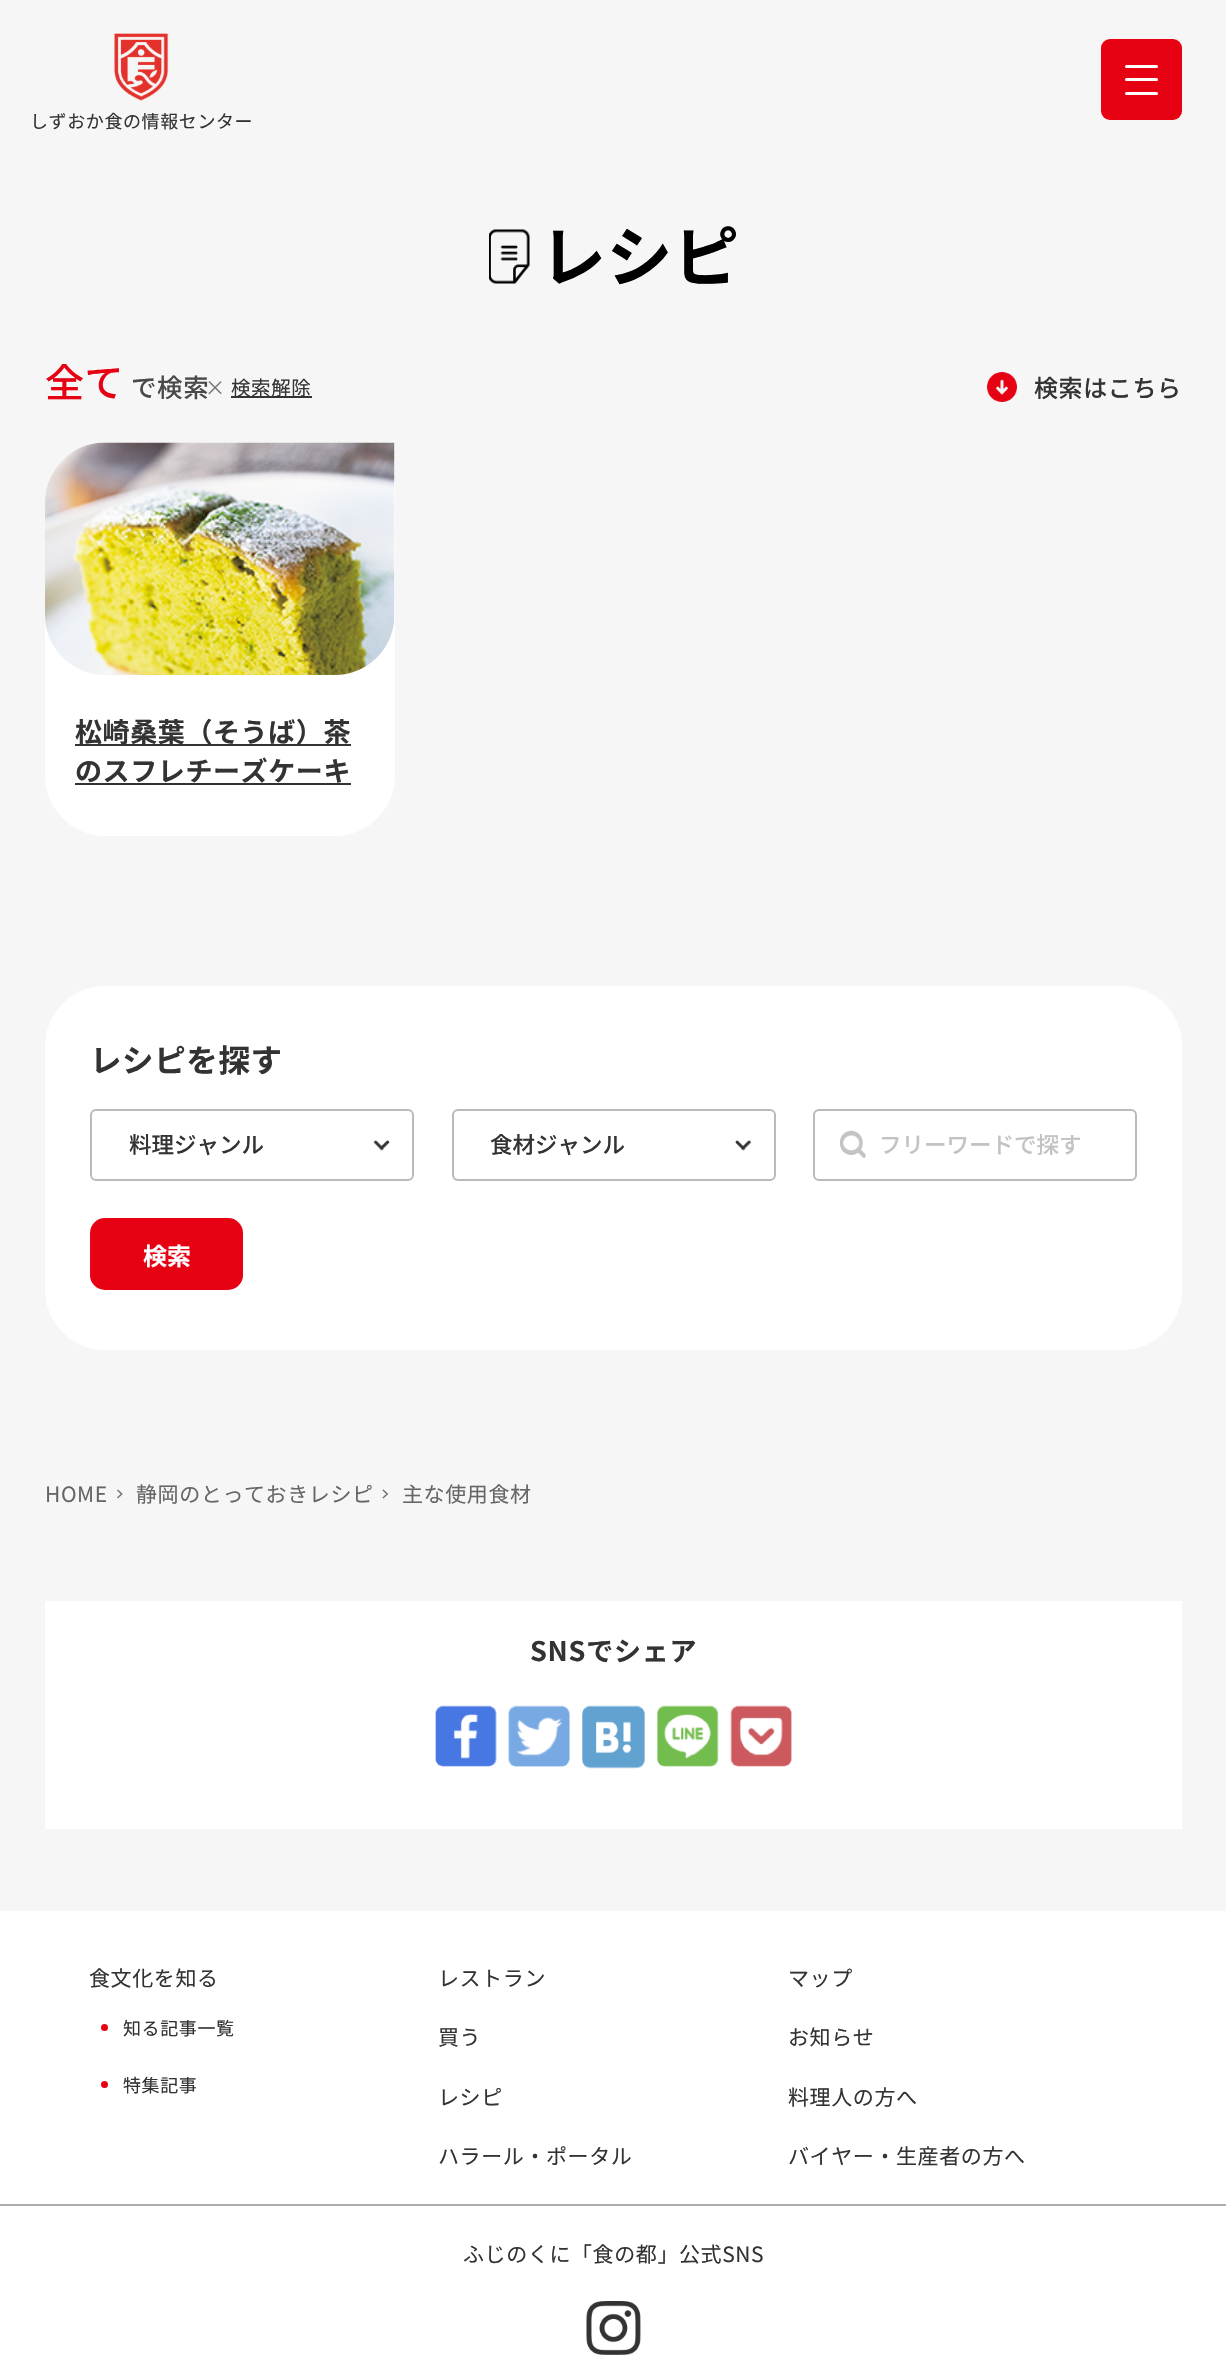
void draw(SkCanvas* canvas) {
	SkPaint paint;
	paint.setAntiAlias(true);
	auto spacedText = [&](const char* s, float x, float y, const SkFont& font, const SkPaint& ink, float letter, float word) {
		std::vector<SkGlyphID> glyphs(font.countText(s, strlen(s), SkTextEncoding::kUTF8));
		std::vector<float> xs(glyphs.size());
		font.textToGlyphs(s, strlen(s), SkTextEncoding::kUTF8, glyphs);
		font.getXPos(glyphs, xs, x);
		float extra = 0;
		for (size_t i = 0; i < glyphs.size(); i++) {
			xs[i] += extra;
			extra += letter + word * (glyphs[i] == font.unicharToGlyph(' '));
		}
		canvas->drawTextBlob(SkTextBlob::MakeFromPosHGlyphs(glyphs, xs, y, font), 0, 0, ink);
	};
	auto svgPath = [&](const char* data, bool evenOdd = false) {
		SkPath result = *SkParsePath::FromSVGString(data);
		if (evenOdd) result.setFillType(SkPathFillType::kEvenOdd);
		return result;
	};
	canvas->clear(0xfff6f6f6);
	canvas->drawImageRect(SkImages::DeferredFromEncodedData(SkData::MakeFromFileName("img1.png")), SkRect::MakeXYWH(114, 33, 55, 68), SkSamplingOptions());
	SkFont f1(fontMgr->matchFamilyStyle("Noto Sans JP", SkFontStyle::Normal()), 18);
	f1.setSubpixel(true);
	paint.setColor(0xff333333);
	spacedText("しずおか食の情報センター", 30, 128, f1, paint, 0.6, 0);
	paint.setColor(0xffe60113);
	canvas->drawRoundRect(SkRect::MakeXYWH(1101, 39, 81, 81), 9, 9, paint);
	paint.setColor(0xffffffff);
	canvas->drawRoundRect(SkRect::MakeXYWH(1125, 65, 33, 3), 1.5, 1.5, paint);
	canvas->drawRoundRect(SkRect::MakeXYWH(1125, 78, 33, 3), 1.5, 1.5, paint);
	canvas->drawRoundRect(SkRect::MakeXYWH(1125, 92, 33, 3), 1.5, 1.5, paint);
	canvas->drawImageRect(SkImages::DeferredFromEncodedData(SkData::MakeFromFileName("img2.png")), SkRect::MakeXYWH(489, 229, 41, 55), SkSamplingOptions());
	SkFont f2(fontMgr->matchFamilyStyle("Noto Sans JP", SkFontStyle::Bold()), 66);
	f2.setSubpixel(true);
	paint.setColor(0xff000000);
	spacedText("レシピ", 540, 281, f2, paint, 0.6, 0);
	SkFont f3(fontMgr->matchFamilyStyle("Noto Sans JP", SkFontStyle(500, SkFontStyle::kNormal_Width, SkFontStyle::kUpright_Slant)), 39);
	f3.setSubpixel(true);
	paint.setColor(0xffe60113);
	spacedText("全て", 45, 397, f3, paint, 0.6, 0);
	SkFont f4(fontMgr->matchFamilyStyle("Noto Sans JP", SkFontStyle(500, SkFontStyle::kNormal_Width, SkFontStyle::kUpright_Slant)), 25.5);
	f4.setSubpixel(true);
	paint.setColor(0xff494949);
	spacedText("で検索", 131, 397, f4, paint, 0.6, 0);
	canvas->drawImageRect(SkImages::DeferredFromEncodedData(SkData::MakeFromFileName("img3.png")), SkRect::MakeXYWH(208, 381, 14, 14), SkSamplingOptions());
	paint.setColor(0xff333333);
	canvas->drawRect(SkRect::MakeXYWH(231, 396, 81, 2), paint);
	SkFont f5(fontMgr->matchFamilyStyle("Noto Sans JP", SkFontStyle::Normal()), 19.5);
	f5.setSubpixel(true);
	spacedText("検索解除", 231, 395, f5, paint, 0.6, 0);
	canvas->drawImageRect(SkImages::DeferredFromEncodedData(SkData::MakeFromFileName("img4.png")), SkRect::MakeXYWH(987, 372, 30, 30), SkSamplingOptions());
	SkFont f6(fontMgr->matchFamilyStyle("Noto Sans JP", SkFontStyle(500, SkFontStyle::kNormal_Width, SkFontStyle::kUpright_Slant)), 24);
	f6.setSubpixel(true);
	spacedText("検索はこちら", 1034, 397, f6, paint, 0.6, 0);
	paint.setColor(0xffffffff);
	canvas->drawPath(svgPath("M105 443H395V776C395 809 368 836 335 836H105C72 836 45 809 45 776V503C45 470 72 443 105 443Z"), paint);
	canvas->drawImageRect(SkImages::DeferredFromEncodedData(SkData::MakeFromFileName("img5.png")), SkRect::MakeXYWH(45, 442, 350, 233), SkSamplingOptions());
	paint.setColor(0xff333333);
	canvas->drawRect(SkRect::MakeXYWH(75, 744, 276, 2), paint);
	SkFont f7(fontMgr->matchFamilyStyle("Noto Sans JP", SkFontStyle::Bold()), 27);
	f7.setSubpixel(true);
	spacedText("松崎桑葉（そうば）茶", 75, 742, f7, paint, 0.6, 0);
	spacedText("のスフレチーズケーキ", 75, 781, f7, paint, 0.6, 0);
	canvas->drawRect(SkRect::MakeXYWH(75, 783, 276, 2), paint);
	paint.setColor(0xffffffff);
	canvas->drawRoundRect(SkRect::MakeXYWH(45, 986, 1137, 364), 60, 60, paint);
	SkFont f8(fontMgr->matchFamilyStyle("Noto Sans JP", SkFontStyle::Bold()), 31.5);
	f8.setSubpixel(true);
	paint.setColor(0xff333333);
	spacedText("レシピを探す", 90, 1072, f8, paint, 0.6, 0);
	canvas->drawImageRect(SkImages::DeferredFromEncodedData(SkData::MakeFromFileName("img6.png")), SkRect::MakeXYWH(373, 1140, 17, 11), SkSamplingOptions());
	paint.setStroke(true);
	paint.setStrokeWidth(2);
	paint.setColor(0xffbababa);
	canvas->drawRoundRect(SkRect::MakeXYWH(91, 1110, 322, 70), 5, 5, paint);
	SkFont f9(fontMgr->matchFamilyStyle("Noto Sans JP", SkFontStyle(500, SkFontStyle::kNormal_Width, SkFontStyle::kUpright_Slant)), 22.5);
	f9.setSubpixel(true);
	paint.setStroke(false);
	paint.setColor(0xff333333);
	canvas->drawString("料理ジャンル", 129, 1153, f9, paint);
	canvas->drawImageRect(SkImages::DeferredFromEncodedData(SkData::MakeFromFileName("img7.png")), SkRect::MakeXYWH(735, 1140, 17, 11), SkSamplingOptions());
	paint.setStroke(true);
	paint.setColor(0xffbababa);
	canvas->drawRoundRect(SkRect::MakeXYWH(453, 1110, 322, 70), 5, 5, paint);
	paint.setStroke(false);
	paint.setColor(0xff333333);
	canvas->drawString("食材ジャンル", 490, 1153, f9, paint);
	canvas->drawImageRect(SkImages::DeferredFromEncodedData(SkData::MakeFromFileName("img9.png")), SkRect::MakeXYWH(840, 1132, 26, 26), SkSamplingOptions());
	paint.setStroke(true);
	paint.setColor(0xffbababa);
	canvas->drawRoundRect(SkRect::MakeXYWH(814, 1110, 322, 70), 5, 5, paint);
	canvas->drawImageRect(SkImages::DeferredFromEncodedData(SkData::MakeFromFileName("img8.png")), SkRect::MakeXYWH(840, 1130, 26, 26), SkSamplingOptions());
	paint.setStroke(false);
	paint.setColor(0xffc4c2c2);
	canvas->drawString("フリーワードで探す", 879, 1153, f9, paint);
	paint.setColor(0xffe60113);
	canvas->drawRoundRect(SkRect::MakeXYWH(90, 1218, 153, 72), 15, 15, paint);
	SkFont f10(fontMgr->matchFamilyStyle("Noto Sans JP", SkFontStyle::Bold()), 24);
	f10.setSubpixel(true);
	paint.setColor(0xffffffff);
	canvas->drawString("検索", 143, 1265, f10, paint);
	SkFont f11(fontMgr->matchFamilyStyle("Noto Sans JP", SkFontStyle::Normal()), 21);
	f11.setSubpixel(true);
	paint.setColor(0xff666666);
	spacedText("HOME", 45, 1502, f11, paint, 0.6, 0);
	canvas->drawImageRect(SkImages::DeferredFromEncodedData(SkData::MakeFromFileName("img10.png")), SkRect::MakeXYWH(117, 1489, 6, 10), SkSamplingOptions());
	spacedText("静岡のとっておきレシピ", 136, 1502, f11, paint, 0.6, 0);
	canvas->drawImageRect(SkImages::DeferredFromEncodedData(SkData::MakeFromFileName("img11.png")), SkRect::MakeXYWH(382, 1489, 7, 10), SkSamplingOptions());
	spacedText("主な使用食材", 402, 1502, f11, paint, 0.6, 0);
	paint.setColor(0xffffffff);
	canvas->drawRect(SkRect::MakeXYWH(45, 1601, 1137, 228), paint);
	paint.setColor(0xff333333);
	spacedText("SNSでシェア", 530, 1661, f7, paint, 0.75, 0);
	canvas->drawImageRect(SkImages::DeferredFromEncodedData(SkData::MakeFromFileName("img12.png")), SkRect::MakeXYWH(435, 1705, 62, 62), SkSamplingOptions());
	canvas->drawImageRect(SkImages::DeferredFromEncodedData(SkData::MakeFromFileName("img13.png")), SkRect::MakeXYWH(508, 1705, 62, 62), SkSamplingOptions());
	canvas->drawImageRect(SkImages::DeferredFromEncodedData(SkData::MakeFromFileName("img14.png")), SkRect::MakeXYWH(582, 1705, 63, 64), SkSamplingOptions());
	canvas->drawImageRect(SkImages::DeferredFromEncodedData(SkData::MakeFromFileName("img15.png")), SkRect::MakeXYWH(657, 1705, 62, 62), SkSamplingOptions());
	canvas->drawImageRect(SkImages::DeferredFromEncodedData(SkData::MakeFromFileName("img16.png")), SkRect::MakeXYWH(730, 1705, 62, 62), SkSamplingOptions());
	paint.setColor(0xffffffff);
	canvas->drawRect(SkRect::MakeXYWH(0, 1911, 1226, 457), paint);
	paint.setColor(0xff333333);
	spacedText("食文化を知る", 89, 1986, f11, paint, 0.6, 0);
	paint.setColor(0xffe60113);
	canvas->drawCircle(104.5, 2027.5, 2.5, paint);
	paint.setStroke(true);
	canvas->drawCircle(104.5, 2027.5, 2.5, paint);
	paint.setStroke(false);
	paint.setColor(0xff333333);
	spacedText("知る記事一覧", 123, 2035, f1, paint, 0.6, 0);
	paint.setColor(0xffe60113);
	canvas->drawCircle(104.5, 2084.5, 2.5, paint);
	paint.setStroke(true);
	canvas->drawCircle(104.5, 2084.5, 2.5, paint);
	paint.setStroke(false);
	paint.setColor(0xff333333);
	spacedText("特集記事", 123, 2092, f1, paint, 0.6, 0);
	spacedText("レストラン", 438, 1986, f11, paint, 0.6, 0);
	spacedText("買う", 438, 2045, f11, paint, 0.6, 0);
	spacedText("レシピ", 438, 2105, f11, paint, 0.6, 0);
	spacedText("ハラール・ポータル", 438, 2164, f11, paint, 0.6, 0);
	spacedText("マップ", 788, 1986, f11, paint, 0.6, 0);
	spacedText("お知らせ", 788, 2045, f11, paint, 0.6, 0);
	spacedText("料理人の方へ", 788, 2105, f11, paint, 0.6, 0);
	spacedText("バイヤー・生産者の方へ", 788, 2164, f11, paint, 0.6, 0);
	paint.setColor(0xffadadad);
	canvas->drawRect(SkRect::MakeXYWH(0, 2204, 1226, 2), paint);
	paint.setColor(0xff333333);
	spacedText("ふじのくに「食の都」公式SNS", 463, 2262, f11, paint, 0.6, 0);
	canvas->drawImageRect(SkImages::DeferredFromEncodedData(SkData::MakeFromFileName("img17.png")), SkRect::MakeXYWH(586, 2301, 55, 54), SkSamplingOptions());
}
